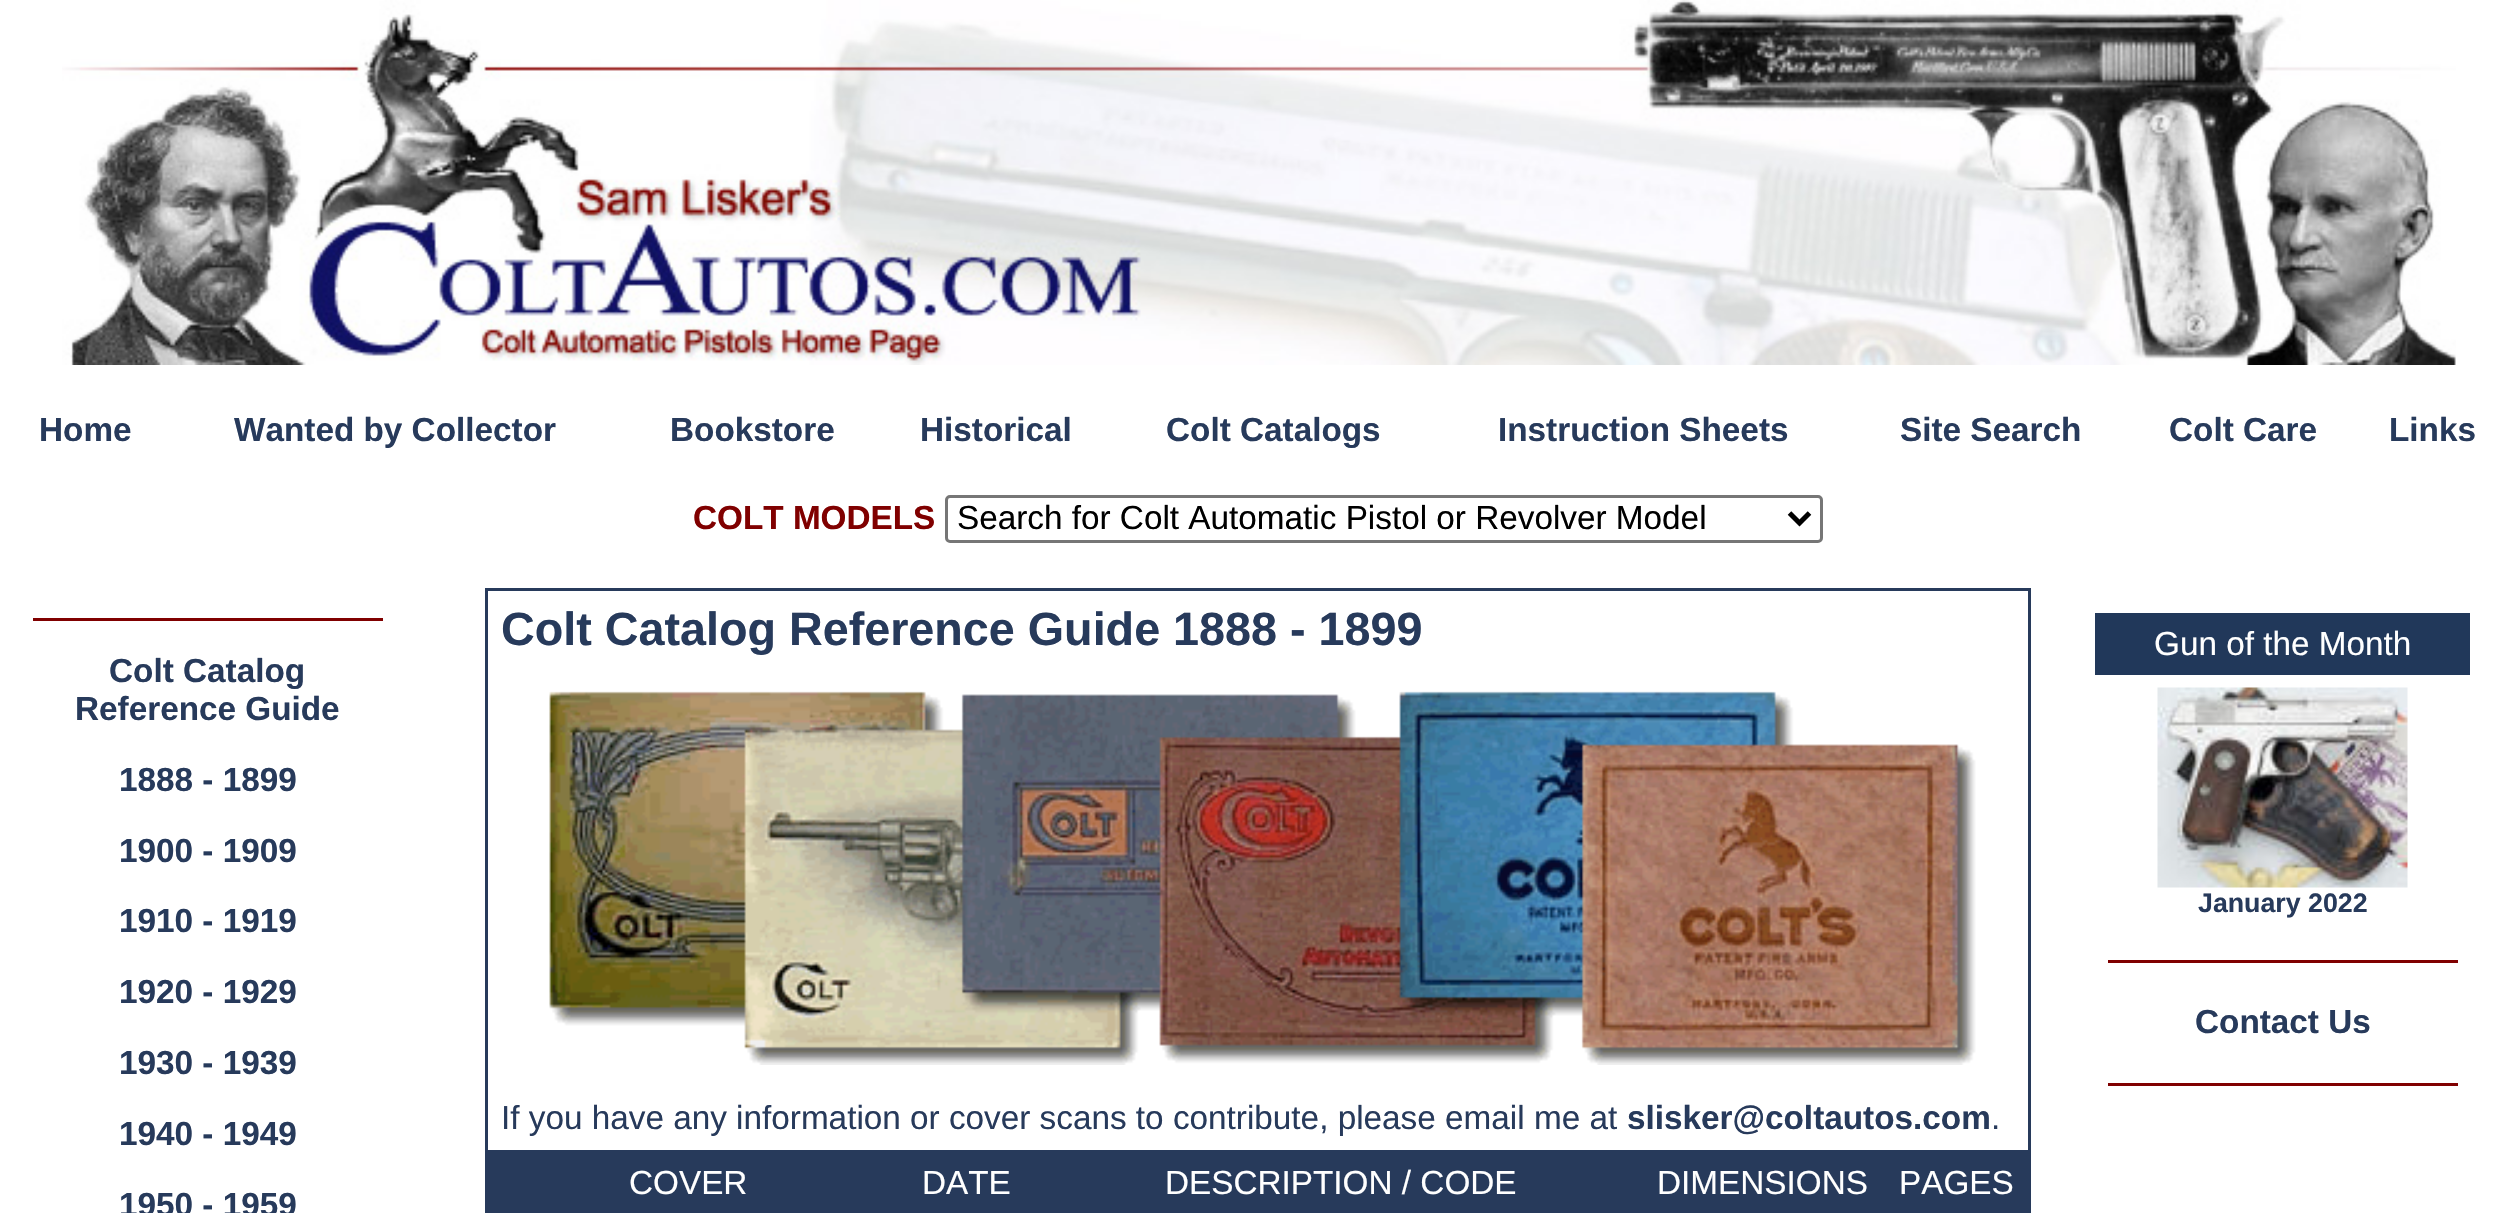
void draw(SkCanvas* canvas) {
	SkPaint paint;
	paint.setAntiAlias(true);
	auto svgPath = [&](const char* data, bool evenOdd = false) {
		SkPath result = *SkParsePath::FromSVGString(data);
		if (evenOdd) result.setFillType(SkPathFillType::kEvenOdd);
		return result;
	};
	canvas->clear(0xffffffff);
	canvas->drawImageRect(SkImages::DeferredFromEncodedData(SkData::MakeFromFileName("img1.png")), SkRect::MakeXYWH(62, 0, 2394, 365), SkSamplingOptions());
	SkFont f1(fontMgr->matchFamilyStyle("Liberation Sans", SkFontStyle::Bold()), 33.3);
	f1.setSubpixel(true);
	paint.setColor(0xff273a5b);
	canvas->drawString("Home", 39, 441, f1, paint);
	canvas->drawString("Wanted by Collector", 234, 441, f1, paint);
	canvas->drawString("Bookstore", 670, 441, f1, paint);
	canvas->drawString("Historical", 920, 441, f1, paint);
	canvas->drawString("Colt Catalogs", 1166, 441, f1, paint);
	canvas->drawString("Instruction Sheets", 1498, 441, f1, paint);
	canvas->drawString("Site Search", 1900, 441, f1, paint);
	canvas->drawString("Colt Care", 2169, 441, f1, paint);
	canvas->drawString("Links", 2389, 441, f1, paint);
	paint.setColor(0xff800000);
	canvas->drawString("COLT MODELS", 693, 529, f1, paint);
	paint.setStroke(true);
	paint.setStrokeWidth(3);
	paint.setColor(0xff767676);
	canvas->drawRoundRect(SkRect::MakeXYWH(946.5, 496.5, 875, 45), 3.5, 3.5, paint);
	paint.setStrokeWidth(5);
	paint.setColor(0xff000000);
	canvas->drawPath(svgPath("M1789.5 513L1799.5 523L1809.5 513"), paint);
	SkFont f2(fontMgr->matchFamilyStyle("Liberation Sans", SkFontStyle::Normal()), 33.3);
	f2.setSubpixel(true);
	paint.setStroke(false);
	canvas->drawString("Search for Colt Automatic Pistol or Revolver Model", 957, 529, f2, paint);
	paint.setColor(0xff800000);
	canvas->drawRect(SkRect::MakeXYWH(33, 618, 350, 3), paint);
	paint.setColor(0xff273a5b);
	canvas->drawString("Colt Catalog", 109, 682, f1, paint);
	canvas->drawString("Reference Guide", 75, 720, f1, paint);
	canvas->drawString("1888 - 1899", 119, 791, f1, paint);
	canvas->drawString("1900 - 1909", 119, 862, f1, paint);
	canvas->drawString("1910 - 1919", 119, 932, f1, paint);
	canvas->drawString("1920 - 1929", 119, 1003, f1, paint);
	canvas->drawString("1930 - 1939", 119, 1074, f1, paint);
	canvas->drawString("1940 - 1949", 119, 1145, f1, paint);
	canvas->drawString("1950 - 1959", 119, 1216, f1, paint);
	canvas->drawRect(SkRect::MakeXYWH(485, 588, 1545, 3), paint);
	canvas->drawRect(SkRect::MakeXYWH(2028, 588, 3, 625), paint);
	canvas->drawRect(SkRect::MakeXYWH(485, 588, 3, 625), paint);
	SkFont f3(fontMgr->matchFamilyStyle("Liberation Sans", SkFontStyle::Bold()), 46.7);
	f3.setSubpixel(true);
	canvas->drawString("Colt Catalog Reference Guide 1888 - 1899", 501, 645, f3, paint);
	canvas->drawImageRect(SkImages::DeferredFromEncodedData(SkData::MakeFromFileName("img2.png")), SkRect::MakeXYWH(549, 691, 1427, 374), SkSamplingOptions());
	canvas->drawString("If you have any information or cover scans to contribute, please email", 501, 1129, f2, paint);
	canvas->drawString("me at", 1534, 1129, f2, paint);
	canvas->drawString("slisker@coltautos.com", 1627, 1129, f1, paint);
	canvas->drawString(".", 1991, 1129, f2, paint);
	canvas->drawRect(SkRect::MakeXYWH(488, 1150, 1540, 63), paint);
	paint.setColor(0xffffffff);
	canvas->drawString("COVER", 629, 1194, f2, paint);
	canvas->drawString("DATE", 922, 1194, f2, paint);
	canvas->drawString("DESCRIPTION / CODE", 1165, 1194, f2, paint);
	canvas->drawString("DIMENSIONS", 1657, 1194, f2, paint);
	canvas->drawString("PAGES", 1899, 1194, f2, paint);
	paint.setColor(0xff21385a);
	canvas->drawRect(SkRect::MakeXYWH(2095, 613, 375, 62), paint);
	paint.setColor(0xffffffff);
	canvas->drawString("Gun of the Month", 2154, 655, f2, paint);
	canvas->drawImageRect(SkImages::DeferredFromEncodedData(SkData::MakeFromFileName("img3.png")), SkRect::MakeXYWH(2157, 687, 251, 201), SkSamplingOptions());
	SkFont f4(fontMgr->matchFamilyStyle("Liberation Sans", SkFontStyle::Bold()), 26.75);
	f4.setSubpixel(true);
	paint.setColor(0xff273a5b);
	canvas->drawString("January 2022", 2198, 912, f4, paint);
	paint.setColor(0xff800000);
	canvas->drawRect(SkRect::MakeXYWH(2108, 960, 350, 3), paint);
	paint.setColor(0xff273a5b);
	canvas->drawString("Contact Us", 2195, 1033, f1, paint);
	paint.setColor(0xff800000);
	canvas->drawRect(SkRect::MakeXYWH(2108, 1083, 350, 3), paint);
}
